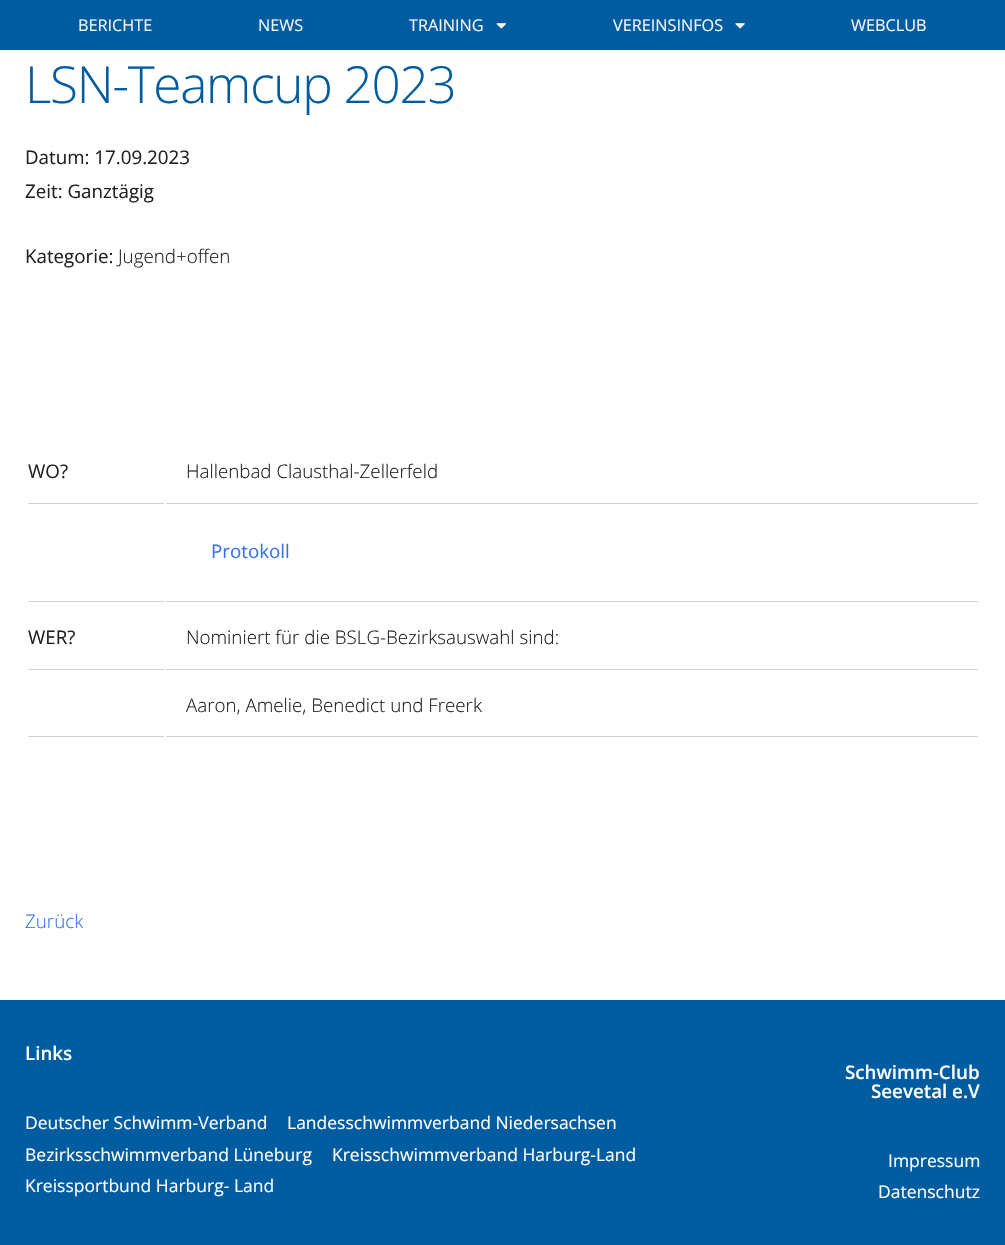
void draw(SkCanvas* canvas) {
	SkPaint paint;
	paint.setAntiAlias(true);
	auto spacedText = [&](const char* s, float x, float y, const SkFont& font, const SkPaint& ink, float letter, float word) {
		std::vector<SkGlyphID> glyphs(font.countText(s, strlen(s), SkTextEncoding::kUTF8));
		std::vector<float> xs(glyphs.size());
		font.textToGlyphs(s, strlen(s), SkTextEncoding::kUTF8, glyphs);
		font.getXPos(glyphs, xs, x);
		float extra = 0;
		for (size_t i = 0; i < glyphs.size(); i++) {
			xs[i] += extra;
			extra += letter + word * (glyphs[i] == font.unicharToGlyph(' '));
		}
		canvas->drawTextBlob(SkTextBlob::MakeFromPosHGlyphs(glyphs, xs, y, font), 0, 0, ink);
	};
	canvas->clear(0xffffffff);
	paint.setColor(0xff005ca1);
	canvas->drawRect(SkRect::MakeXYWH(0, 0, 1005, 50), paint);
	SkFont f1(fontMgr->matchFamilyStyle("Open Sans", SkFontStyle::Normal()), 16.25);
	f1.setSubpixel(true);
	paint.setColor(0xfff5f5fa);
	canvas->drawString("BERICHTE", 78, 31, f1, paint);
	canvas->drawString("NEWS", 258, 31, f1, paint);
	canvas->drawString("TRAINING", 409, 31, f1, paint);
	canvas->drawImageRect(SkImages::DeferredFromEncodedData(SkData::MakeFromFileName("img1.png")), SkRect::MakeXYWH(496, 23, 10, 6), SkSamplingOptions());
	canvas->drawString("VEREINSINFOS", 613, 31, f1, paint);
	canvas->drawImageRect(SkImages::DeferredFromEncodedData(SkData::MakeFromFileName("img2.png")), SkRect::MakeXYWH(735, 23, 10, 6), SkSamplingOptions());
	canvas->drawString("WEBCLUB", 851, 31, f1, paint);
	SkFont f2(fontMgr->matchFamilyStyle("Open Sans", SkFontStyle(300, SkFontStyle::kNormal_Width, SkFontStyle::kUpright_Slant)), 51.25);
	f2.setSubpixel(true);
	paint.setColor(0xff005ca1);
	spacedText("LSN-Teamcup 2023", 25, 103, f2, paint, -1.25, 0);
	SkFont f3(fontMgr->matchFamilyStyle("Open Sans", SkFontStyle::Normal()), 18.75);
	f3.setSubpixel(true);
	paint.setColor(0xff212121);
	canvas->drawString("Datum: 17.09.2023", 25, 164, f3, paint);
	canvas->drawString("Zeit: Ganztägig", 25, 198, f3, paint);
	canvas->drawString("Kategorie:", 25, 263, f3, paint);
	SkFont f4(fontMgr->matchFamilyStyle("Open Sans", SkFontStyle(300, SkFontStyle::kNormal_Width, SkFontStyle::kUpright_Slant)), 18.75);
	f4.setSubpixel(true);
	canvas->drawString("Jugend+offen", 118, 263, f4, paint);
	paint.setColor(0xffd1d1d1);
	canvas->drawRect(SkRect::MakeXYWH(28, 503, 136, 1), paint);
	paint.setColor(0xff212121);
	canvas->drawString("WO?", 28, 478, f3, paint);
	paint.setColor(0xffd1d1d1);
	canvas->drawRect(SkRect::MakeXYWH(166, 503, 812, 1), paint);
	paint.setColor(0xff212121);
	canvas->drawString("Hallenbad Clausthal-Zellerfeld", 186, 478, f4, paint);
	paint.setColor(0xffd1d1d1);
	canvas->drawRect(SkRect::MakeXYWH(166, 601, 812, 1), paint);
	paint.setColor(0xff3372f0);
	canvas->drawString("Protokoll", 211, 558, f3, paint);
	paint.setColor(0xffd1d1d1);
	canvas->drawRect(SkRect::MakeXYWH(28, 601, 136, 1), paint);
	canvas->drawRect(SkRect::MakeXYWH(28, 669, 136, 1), paint);
	paint.setColor(0xff212121);
	canvas->drawString("WER?", 28, 644, f3, paint);
	paint.setColor(0xffd1d1d1);
	canvas->drawRect(SkRect::MakeXYWH(166, 669, 812, 1), paint);
	paint.setColor(0xff212121);
	canvas->drawString("Nominiert für die BSLG-Bezirksauswahl sind:", 186, 644, f4, paint);
	paint.setColor(0xffd1d1d1);
	canvas->drawRect(SkRect::MakeXYWH(166, 736, 812, 1), paint);
	paint.setColor(0xff212121);
	canvas->drawString("Aaron, Amelie, Benedict und Freerk", 186, 712, f4, paint);
	paint.setColor(0xffd1d1d1);
	canvas->drawRect(SkRect::MakeXYWH(28, 736, 136, 1), paint);
	paint.setColor(0xff3372f0);
	canvas->drawString("Zurück", 25, 928, f4, paint);
	paint.setColor(0xff005ca1);
	canvas->drawRect(SkRect::MakeXYWH(0, 1000, 1005, 245), paint);
	SkFont f5(fontMgr->matchFamilyStyle("Open Sans", SkFontStyle(600, SkFontStyle::kNormal_Width, SkFontStyle::kUpright_Slant)), 18.75);
	f5.setSubpixel(true);
	paint.setColor(0xffffffff);
	canvas->drawString("Links", 25, 1060, f5, paint);
	SkFont f6(fontMgr->matchFamilyStyle("Open Sans", SkFontStyle::Normal()), 17.5);
	f6.setSubpixel(true);
	canvas->drawString("Deutscher Schwimm-Verband", 25, 1129, f6, paint);
	canvas->drawString("Landesschwimmverband Niedersachsen", 287, 1129, f6, paint);
	canvas->drawString("Bezirksschwimmverband Lüneburg", 25, 1161, f6, paint);
	canvas->drawString("Kreisschwimmverband Harburg-Land", 332, 1161, f6, paint);
	canvas->drawString("Kreissportbund Harburg- Land", 25, 1192, f6, paint);
	canvas->drawString("Schwimm-Club", 845, 1079, f5, paint);
	canvas->drawString("Seevetal e.V", 871, 1098, f5, paint);
	canvas->drawString("Impressum", 888, 1167, f6, paint);
	canvas->drawString("Datenschutz", 878, 1198, f6, paint);
}
